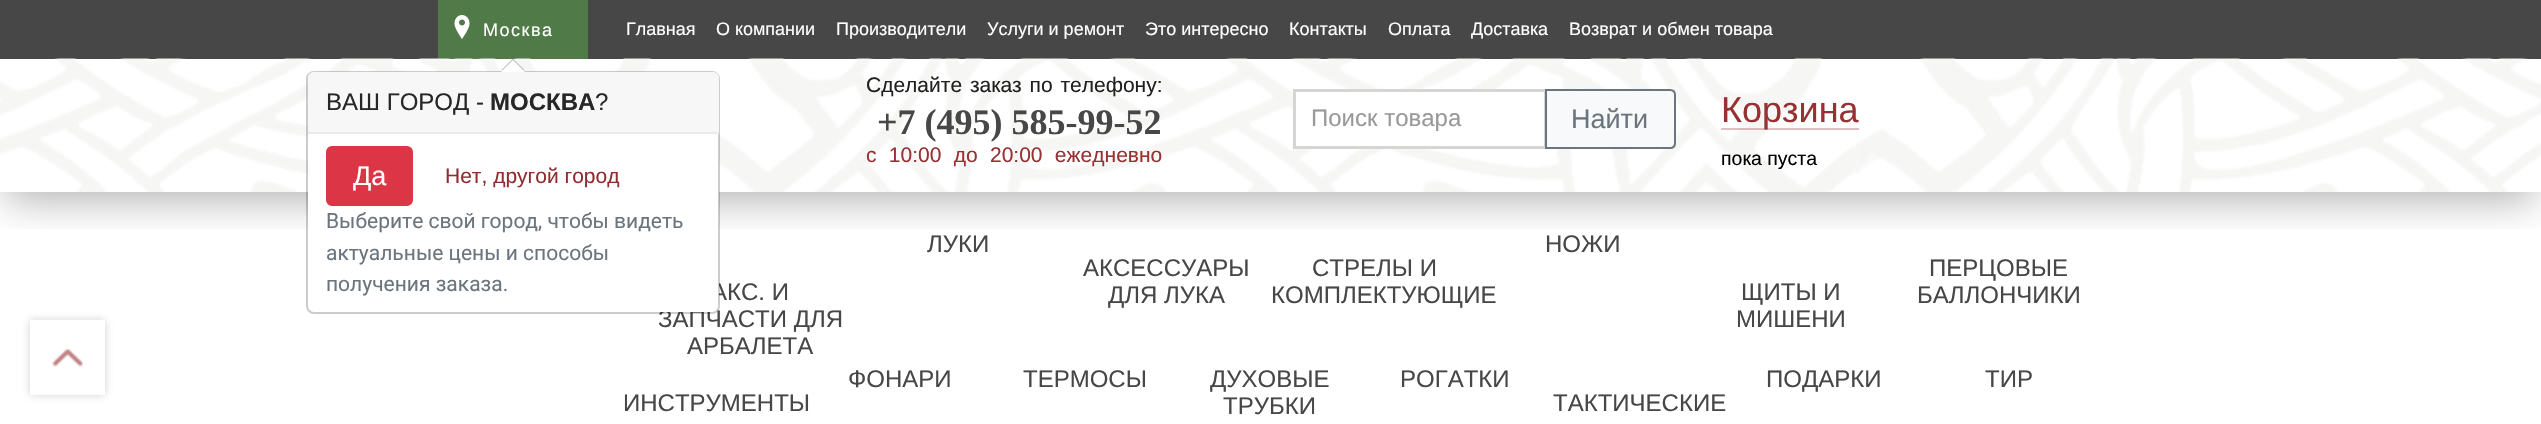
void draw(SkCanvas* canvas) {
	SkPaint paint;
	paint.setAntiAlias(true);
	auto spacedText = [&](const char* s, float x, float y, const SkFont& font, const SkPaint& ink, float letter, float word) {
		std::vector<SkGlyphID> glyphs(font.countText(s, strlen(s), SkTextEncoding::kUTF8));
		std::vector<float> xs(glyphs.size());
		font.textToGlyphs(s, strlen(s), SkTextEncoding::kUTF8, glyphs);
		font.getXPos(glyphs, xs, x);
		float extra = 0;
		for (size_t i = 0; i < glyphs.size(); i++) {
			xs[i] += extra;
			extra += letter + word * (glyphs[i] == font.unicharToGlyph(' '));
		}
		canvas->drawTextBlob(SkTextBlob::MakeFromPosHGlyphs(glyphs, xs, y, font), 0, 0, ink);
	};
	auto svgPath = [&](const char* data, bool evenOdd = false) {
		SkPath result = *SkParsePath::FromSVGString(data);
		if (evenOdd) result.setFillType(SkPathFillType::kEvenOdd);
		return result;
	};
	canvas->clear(0xffffffff);
	canvas->save();
	canvas->clipRect(SkRect::MakeXYWH(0, 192, 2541, 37));
	paint.setColor(0x4d000000);
	paint.setMaskFilter(SkMaskFilter::MakeBlur(kNormal_SkBlurStyle, 19));
	canvas->drawRect(SkRect::MakeXYWH(6, 20, 2529, 180), paint);
	paint.setMaskFilter(nullptr);
	canvas->restore();
	paint.setColor(0xff474747);
	canvas->drawRect(SkRect::MakeXYWH(0, 0, 2541, 59), paint);
	paint.setColor(0xff507a48);
	canvas->drawRect(SkRect::MakeXYWH(438, 0, 150, 59), paint);
	canvas->drawImageRect(SkImages::DeferredFromEncodedData(SkData::MakeFromFileName("img1.png")), SkRect::MakeXYWH(454, 15, 16, 24), SkSamplingOptions());
	SkFont f1(fontMgr->matchFamilyStyle("Liberation Sans", SkFontStyle::Normal()), 18);
	f1.setSubpixel(true);
	paint.setColor(0xffffffff);
	spacedText("Москва", 483, 36, f1, paint, 1.5, 0);
	canvas->drawString("Главная", 626, 35, f1, paint);
	canvas->drawString("О компании", 716, 35, f1, paint);
	canvas->drawString("Производители", 836, 35, f1, paint);
	canvas->drawString("Услуги и ремонт", 987, 35, f1, paint);
	canvas->drawString("Это интересно", 1145, 35, f1, paint);
	canvas->drawString("Контакты", 1289, 35, f1, paint);
	canvas->drawString("Оплата", 1388, 35, f1, paint);
	canvas->drawString("Доставка", 1471, 35, f1, paint);
	canvas->drawString("Возврат и обмен товара", 1569, 35, f1, paint);
	canvas->drawImageRect(SkImages::DeferredFromEncodedData(SkData::MakeFromFileName("img2.png")), SkRect::MakeXYWH(0, 58, 2541, 134), SkSamplingOptions());
	SkFont f2(fontMgr->matchFamilyStyle("Liberation Sans", SkFontStyle::Normal()), 21);
	f2.setSubpixel(true);
	paint.setColor(0xff221f1f);
	spacedText("Сделайте заказ по телефону:", 866, 92, f2, paint, 0, 2);
	SkFont f3(fontMgr->matchFamilyStyle("Liberation Serif", SkFontStyle::Bold()), 36);
	f3.setSubpixel(true);
	paint.setColor(0xff474747);
	canvas->drawString("+7 (495) 585-99-52", 877, 134, f3, paint);
	paint.setColor(0xff973134);
	spacedText("с 10:00 до 20:00 ежедневно", 866, 162, f2, paint, 0, 6.5);
	paint.setColor(0xffffffff);
	canvas->drawRect(SkRect::MakeXYWH(1294.5, 90.5, 251, 57), paint);
	paint.setStroke(true);
	paint.setStrokeWidth(3);
	paint.setColor(0xffd5d5d4);
	canvas->drawRect(SkRect::MakeXYWH(1294.5, 90.5, 251, 57), paint);
	SkFont f4(fontMgr->matchFamilyStyle("Liberation Sans", SkFontStyle::Normal()), 24);
	f4.setSubpixel(true);
	paint.setStroke(false);
	paint.setColor(0xff999999);
	canvas->drawString("Поиск товара", 1311, 126, f4, paint);
	paint.setColor(0xfff8f9fa);
	canvas->drawPath(svgPath("M1546 90H1670C1673 90 1675 92 1675 95V143C1675 146 1673 148 1670 148H1546Z"), paint);
	paint.setStroke(true);
	paint.setStrokeWidth(2);
	paint.setColor(0xff6c757d);
	canvas->drawPath(svgPath("M1546 90H1670C1673 90 1675 92 1675 95V143C1675 146 1673 148 1670 148H1546Z"), paint);
	SkFont f5(fontMgr->matchFamilyStyle("Liberation Sans", SkFontStyle::Normal()), 27);
	f5.setSubpixel(true);
	paint.setStroke(false);
	canvas->drawString("Найти", 1571, 128, f5, paint);
	paint.setColor(0x4d963032);
	canvas->drawRect(SkRect::MakeXYWH(1721, 128, 138, 2), paint);
	SkFont f6(fontMgr->matchFamilyStyle("Liberation Sans", SkFontStyle::Normal()), 36);
	f6.setSubpixel(true);
	paint.setColor(0xff973134);
	canvas->drawString("Корзина", 1721, 122, f6, paint);
	SkFont f7(fontMgr->matchFamilyStyle("Liberation Sans", SkFontStyle::Normal()), 19.5);
	f7.setSubpixel(true);
	paint.setColor(0xff000000);
	canvas->drawString("пока пуста", 1721, 165, f7, paint);
	paint.setColor(0xff474747);
	canvas->drawString("АКС. И", 711, 300, f4, paint);
	canvas->drawString("ЗАПЧАСТИ ДЛЯ", 658, 327, f4, paint);
	paint.setColor(0xffffffff);
	canvas->drawRoundRect(SkRect::MakeXYWH(308, 72, 411, 240), 6, 6, paint);
	paint.setStroke(true);
	paint.setColor(0x33000000);
	canvas->drawRoundRect(SkRect::MakeXYWH(307, 72, 412, 241), 7, 7, paint);
	paint.setStroke(false);
	paint.setColor(0x40000000);
	canvas->drawPath(svgPath("M525 70.5H501L513 58.5Z"), paint);
	paint.setColor(0xffffffff);
	canvas->drawPath(svgPath("M525 72H501L513 60Z"), paint);
	paint.setColor(0xfff7f7f7);
	canvas->drawPath(svgPath("M314 72H713C716.5 72 719 74.5 719 78V134H308V78C308 74.5 310.5 72 314 72Z"), paint);
	paint.setColor(0xffebebeb);
	canvas->drawRect(SkRect::MakeXYWH(308, 132, 411, 2), paint);
	paint.setColor(0xff262727);
	canvas->drawString("ВАШ ГОРОД -", 326, 110, f4, paint);
	SkFont f8(fontMgr->matchFamilyStyle("Liberation Sans", SkFontStyle::Bold()), 24);
	f8.setSubpixel(true);
	canvas->drawString("МОСКВА", 490, 110, f8, paint);
	canvas->drawString("?", 595, 110, f4, paint);
	paint.setColor(0xffdc3545);
	canvas->drawRoundRect(SkRect::MakeXYWH(327, 147, 85, 58), 5, 5, paint);
	paint.setStroke(true);
	canvas->drawRoundRect(SkRect::MakeXYWH(327, 147, 85, 58), 5, 5, paint);
	paint.setStroke(false);
	paint.setColor(0xffffffff);
	canvas->drawString("Да", 353, 185, f5, paint);
	paint.setColor(0xff8f2d31);
	canvas->drawString("Нет, другой город", 445, 183, f2, paint);
	SkFont f9(fontMgr->matchFamilyStyle("Roboto", SkFontStyle::Normal()), 21);
	f9.setSubpixel(true);
	paint.setColor(0xff6c757d);
	canvas->drawString("Выберите свой город, чтобы видеть", 326, 228, f9, paint);
	canvas->drawString("актуальные цены и способы", 326, 260, f9, paint);
	canvas->drawString("получения заказа.", 326, 291, f9, paint);
	paint.setColor(0x4d666666);
	paint.setMaskFilter(SkMaskFilter::MakeBlur(kNormal_SkBlurStyle, 4));
	canvas->drawRect(SkRect::MakeXYWH(30, 320, 75, 75), paint);
	paint.setMaskFilter(nullptr);
	paint.setColor(0xffffffff);
	canvas->drawRect(SkRect::MakeXYWH(30, 320, 75, 75), paint);
	canvas->drawImageRect(SkImages::DeferredFromEncodedData(SkData::MakeFromFileName("img3.png")), SkRect::MakeXYWH(52, 348, 31, 19), SkSamplingOptions());
	paint.setColor(0xff474747);
	canvas->drawString("ЛУКИ", 927, 252, f4, paint);
	canvas->drawString("НОЖИ", 1545, 252, f4, paint);
	canvas->drawString("АРБАЛЕТА", 687, 354, f4, paint);
	canvas->drawString("АКСЕССУАРЫ", 1083, 276, f4, paint);
	canvas->drawString("ДЛЯ ЛУКА", 1108, 303, f4, paint);
	canvas->drawString("СТРЕЛЫ И", 1312, 276, f4, paint);
	canvas->drawString("КОМПЛЕКТУЮЩИЕ", 1271, 303, f4, paint);
	canvas->drawString("ЩИТЫ И", 1741, 300, f4, paint);
	canvas->drawString("МИШЕНИ", 1736, 327, f4, paint);
	canvas->drawString("ПЕРЦОВЫЕ", 1929, 276, f4, paint);
	canvas->drawString("БАЛЛОНЧИКИ", 1917, 303, f4, paint);
	canvas->drawString("ФОНАРИ", 848, 387, f4, paint);
	canvas->drawString("ТЕРМОСЫ", 1023, 387, f4, paint);
	canvas->drawString("ДУХОВЫЕ", 1210, 387, f4, paint);
	canvas->drawString("ТРУБКИ", 1223, 414, f4, paint);
	canvas->drawString("РОГАТКИ", 1400, 387, f4, paint);
	canvas->drawString("ПОДАРКИ", 1766, 387, f4, paint);
	canvas->drawString("ТИР", 1985, 387, f4, paint);
	canvas->drawString("ИНСТРУМЕНТЫ", 623, 411, f4, paint);
	canvas->drawString("ТАКТИЧЕСКИЕ", 1553, 411, f4, paint);
}
